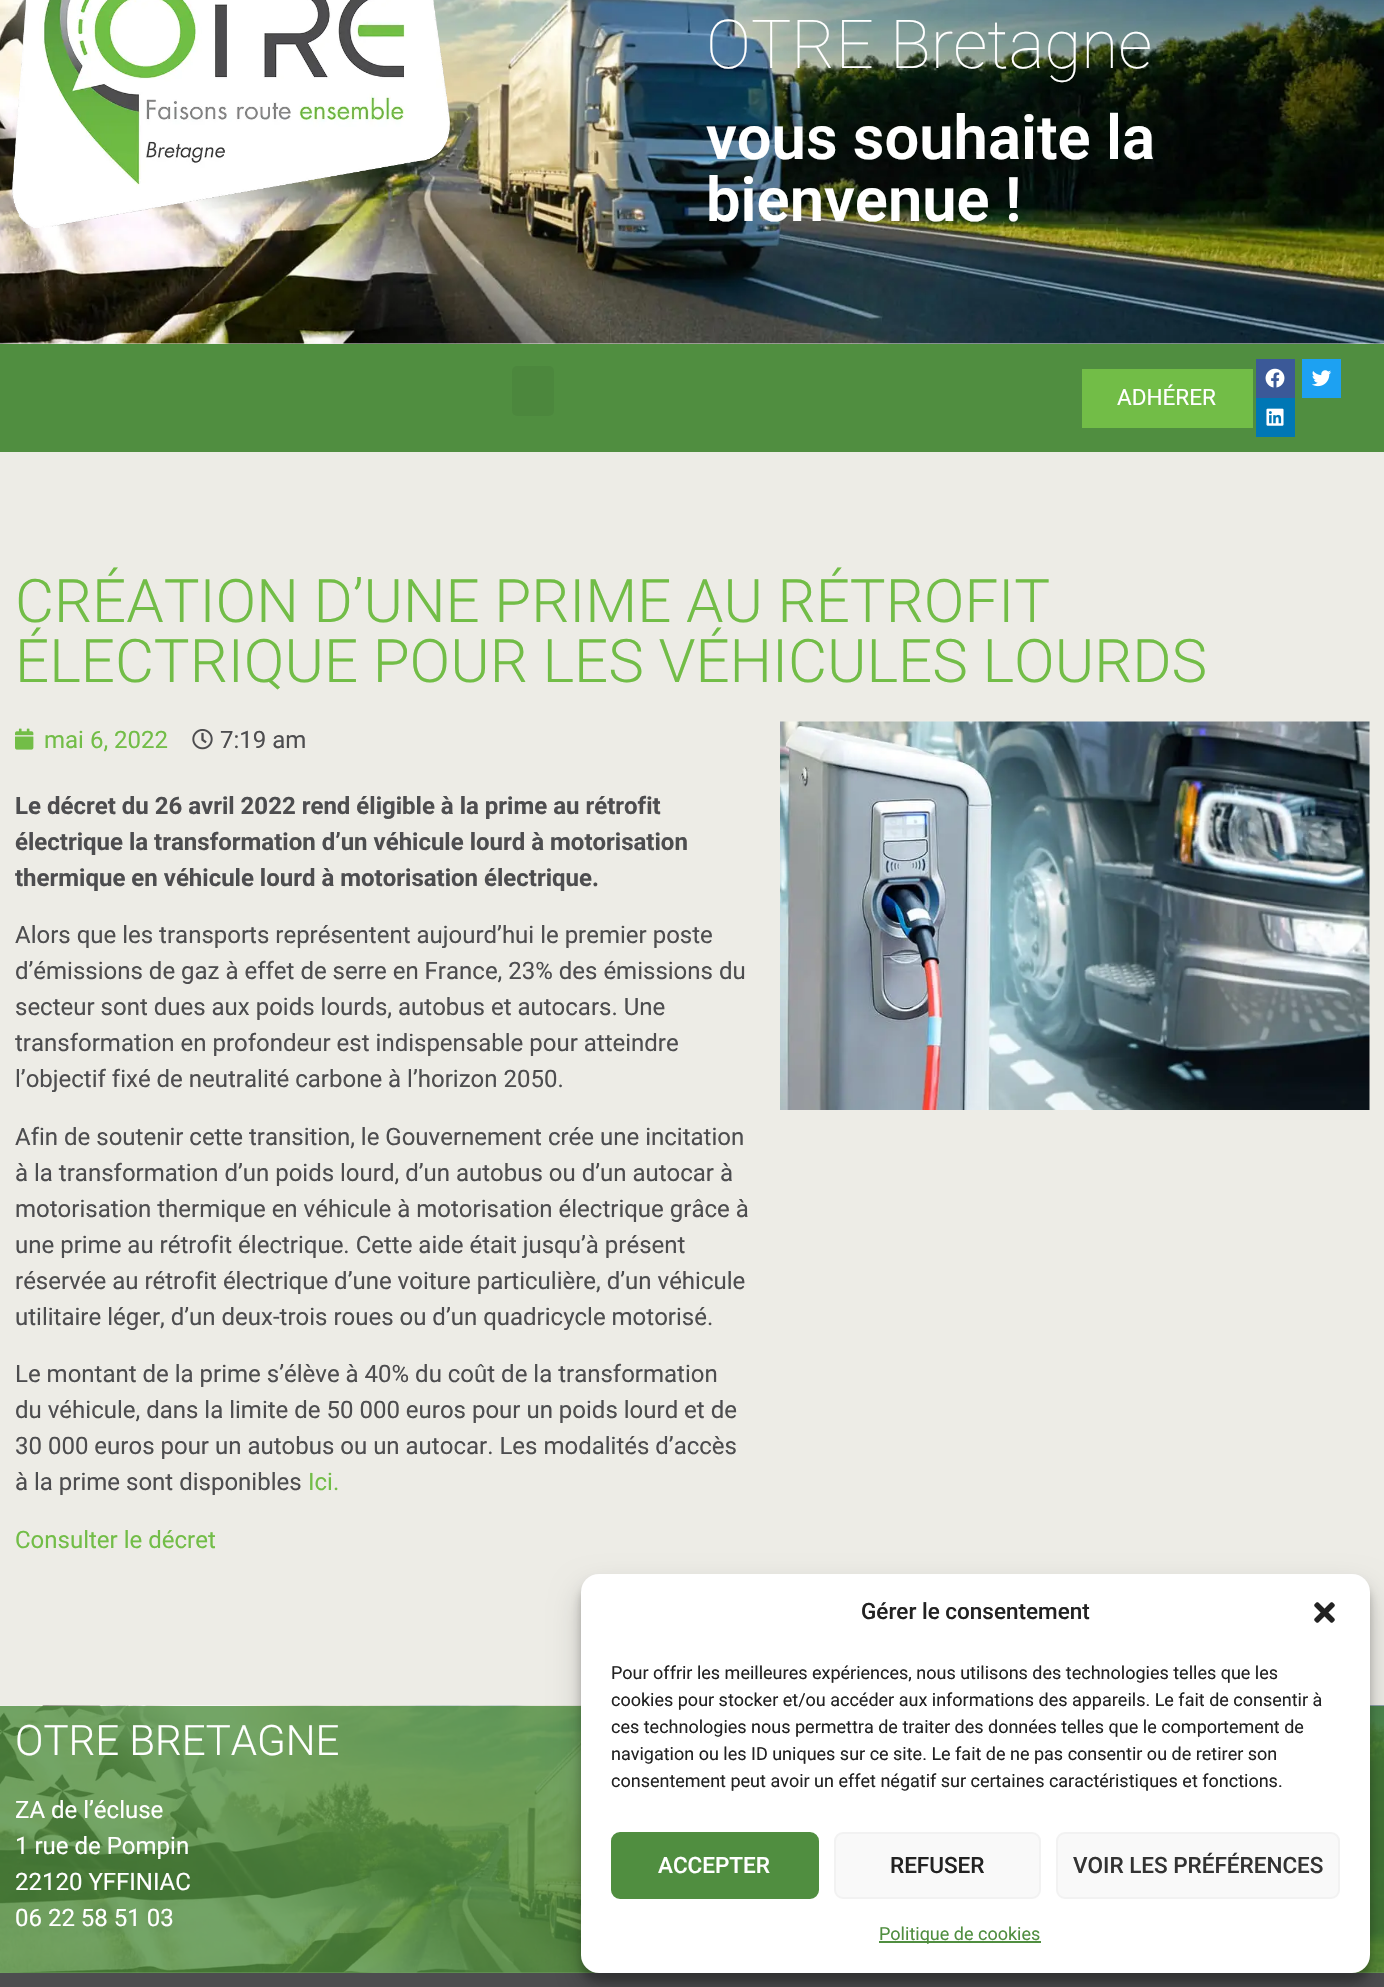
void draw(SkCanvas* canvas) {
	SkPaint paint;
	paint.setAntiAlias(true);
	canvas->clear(0xffedece6);
	paint.setColor(0xff6fa161);
	canvas->drawRect(SkRect::MakeXYWH(0, 1972, 1384, 1), paint);
	canvas->drawImageRect(SkImages::DeferredFromEncodedData(SkData::MakeFromFileName("img1.png")), SkRect::MakeXYWH(0, 0, 1384, 344), SkSamplingOptions());
	canvas->drawImageRect(SkImages::DeferredFromEncodedData(SkData::MakeFromFileName("img2.png")), SkRect::MakeXYWH(12, 0, 438, 229), SkSamplingOptions());
	SkFont f1(fontMgr->matchFamilyStyle("Roboto", SkFontStyle(100, SkFontStyle::kNormal_Width, SkFontStyle::kUpright_Slant)), 67.5);
	f1.setSubpixel(true);
	paint.setColor(0xffffffff);
	canvas->drawString("OTRE Bretagne", 706, 68, f1, paint);
	SkFont f2(fontMgr->matchFamilyStyle("Roboto", SkFontStyle(600, SkFontStyle::kNormal_Width, SkFontStyle::kUpright_Slant)), 61.5);
	f2.setSubpixel(true);
	canvas->drawString("vous souhaite la", 706, 159, f2, paint);
	canvas->drawString("bienvenue !", 706, 221, f2, paint);
	paint.setColor(0xff508e40);
	canvas->drawRect(SkRect::MakeXYWH(0, 344, 1384, 108), paint);
	paint.setColor(0xff4c873d);
	canvas->drawRoundRect(SkRect::MakeXYWH(512, 366, 42, 50), 5, 5, paint);
	paint.setColor(0xff72bd47);
	canvas->drawRect(SkRect::MakeXYWH(1082, 369, 171, 59), paint);
	SkFont f3(fontMgr->matchFamilyStyle("Roboto", SkFontStyle::Normal()), 22.5);
	f3.setSubpixel(true);
	paint.setColor(0xffffffff);
	canvas->drawString("ADHÉRER", 1117, 405, f3, paint);
	paint.setColor(0xff3b5998);
	canvas->drawRect(SkRect::MakeXYWH(1256, 359, 39, 39), paint);
	canvas->drawImageRect(SkImages::DeferredFromEncodedData(SkData::MakeFromFileName("img3.png")), SkRect::MakeXYWH(1265, 368, 20, 20), SkSamplingOptions());
	paint.setColor(0xff1da1f2);
	canvas->drawRect(SkRect::MakeXYWH(1302, 359, 39, 39), paint);
	canvas->drawImageRect(SkImages::DeferredFromEncodedData(SkData::MakeFromFileName("img4.png")), SkRect::MakeXYWH(1312, 370, 20, 17), SkSamplingOptions());
	paint.setColor(0xff0077b5);
	canvas->drawRect(SkRect::MakeXYWH(1256, 398, 39, 39), paint);
	canvas->drawImageRect(SkImages::DeferredFromEncodedData(SkData::MakeFromFileName("img5.png")), SkRect::MakeXYWH(1266, 408, 18, 18), SkSamplingOptions());
	SkFont f4(fontMgr->matchFamilyStyle("Roboto", SkFontStyle(300, SkFontStyle::kNormal_Width, SkFontStyle::kUpright_Slant)), 60);
	f4.setSubpixel(true);
	paint.setColor(0xff72bd47);
	canvas->drawString("CRÉATION D’UNE PRIME AU RÉTROFIT", 15, 622, f4, paint);
	canvas->drawString("ÉLECTRIQUE POUR LES VÉHICULES LOURDS", 15, 682, f4, paint);
	canvas->drawImageRect(SkImages::DeferredFromEncodedData(SkData::MakeFromFileName("img6.png")), SkRect::MakeXYWH(15, 728, 19, 22), SkSamplingOptions());
	SkFont f5(fontMgr->matchFamilyStyle("Roboto", SkFontStyle::Normal()), 24);
	f5.setSubpixel(true);
	canvas->drawString("mai 6, 2022", 44, 748, f5, paint);
	canvas->drawImageRect(SkImages::DeferredFromEncodedData(SkData::MakeFromFileName("img7.png")), SkRect::MakeXYWH(192, 729, 21, 21), SkSamplingOptions());
	paint.setColor(0xff4d4d4f);
	canvas->drawString("7:19 am", 220, 748, f5, paint);
	SkFont f6(fontMgr->matchFamilyStyle("Roboto", SkFontStyle::Bold()), 24);
	f6.setSubpixel(true);
	canvas->drawString("Le décret du 26 avril 2022 rend éligible à la prime au rétrofit", 15, 814, f6, paint);
	canvas->drawString("électrique la transformation d’un véhicule lourd à motorisation", 15, 850, f6, paint);
	canvas->drawString("thermique en véhicule lourd à motorisation électrique.", 15, 886, f6, paint);
	canvas->drawString("Alors que les transports représentent aujourd’hui le premier poste", 15, 943, f5, paint);
	canvas->drawString("d’émissions de gaz à effet de serre en France, 23% des émissions du", 15, 979, f5, paint);
	canvas->drawString("secteur sont dues aux poids lourds, autobus et autocars. Une", 15, 1015, f5, paint);
	canvas->drawString("transformation en profondeur est indispensable pour atteindre", 15, 1051, f5, paint);
	canvas->drawString("l’objectif fixé de neutralité carbone à l’horizon 2050.", 15, 1087, f5, paint);
	canvas->drawString("Afin de soutenir cette transition, le Gouvernement crée une incitation", 15, 1145, f5, paint);
	canvas->drawString("à la transformation d’un poids lourd, d’un autobus ou d’un autocar à", 15, 1181, f5, paint);
	canvas->drawString("motorisation thermique en véhicule à motorisation électrique grâce à", 15, 1217, f5, paint);
	canvas->drawString("une prime au rétrofit électrique. Cette aide était jusqu’à présent", 15, 1253, f5, paint);
	canvas->drawString("réservée au rétrofit électrique d’une voiture particulière, d’un véhicule", 15, 1289, f5, paint);
	canvas->drawString("utilitaire léger, d’un deux-trois roues ou d’un quadricycle motorisé.", 15, 1325, f5, paint);
	canvas->drawString("Le montant de la prime s’élève à 40% du coût de la transformation", 15, 1382, f5, paint);
	canvas->drawString("du véhicule, dans la limite de 50 000 euros pour un poids lourd et de", 15, 1418, f5, paint);
	canvas->drawString("30 000 euros pour un autobus ou un autocar. Les modalités d’accès", 15, 1454, f5, paint);
	canvas->drawString("à la prime sont disponibles", 15, 1490, f5, paint);
	paint.setColor(0xff72bd47);
	canvas->drawString("Ici.", 308, 1490, f5, paint);
	canvas->drawString("Consulter le décret", 15, 1548, f5, paint);
	canvas->drawImageRect(SkImages::DeferredFromEncodedData(SkData::MakeFromFileName("img8.png")), SkRect::MakeXYWH(780, 721, 590, 389), SkSamplingOptions());
	canvas->drawImageRect(SkImages::DeferredFromEncodedData(SkData::MakeFromFileName("img9.png")), SkRect::MakeXYWH(0, 1705, 1384, 268), SkSamplingOptions());
	SkFont f7(fontMgr->matchFamilyStyle("Roboto", SkFontStyle(300, SkFontStyle::kNormal_Width, SkFontStyle::kUpright_Slant)), 42);
	f7.setSubpixel(true);
	paint.setColor(0xffffffff);
	canvas->drawString("OTRE BRETAGNE", 15, 1755, f7, paint);
	canvas->drawString("ZA de l’écluse", 15, 1818, f5, paint);
	canvas->drawString("1 rue de Pompin", 15, 1854, f5, paint);
	canvas->drawString("22120 YFFINIAC", 15, 1890, f5, paint);
	canvas->drawString("06 22 58 51 03", 15, 1926, f5, paint);
	paint.setColor(0xff4d4d4f);
	canvas->drawRect(SkRect::MakeXYWH(0, 1973, 1384, 14), paint);
	paint.setColor(0x3b000000);
	paint.setMaskFilter(SkMaskFilter::MakeBlur(kNormal_SkBlurStyle, 4.5));
	canvas->drawRoundRect(SkRect::MakeXYWH(581, 1583, 789, 399), 18, 18, paint);
	paint.setMaskFilter(nullptr);
	paint.setColor(0x30000000);
	paint.setMaskFilter(SkMaskFilter::MakeBlur(kNormal_SkBlurStyle, 15));
	canvas->drawRoundRect(SkRect::MakeXYWH(581, 1589, 789, 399), 18, 18, paint);
	paint.setMaskFilter(nullptr);
	paint.setColor(0xffffffff);
	canvas->drawRoundRect(SkRect::MakeXYWH(581, 1574, 789, 399), 18, 18, paint);
	SkFont f8(fontMgr->matchFamilyStyle("Roboto", SkFontStyle(500, SkFontStyle::kNormal_Width, SkFontStyle::kUpright_Slant)), 22.5);
	f8.setSubpixel(true);
	paint.setColor(0xff222222);
	canvas->drawString("Gérer le consentement", 861, 1619, f8, paint);
	canvas->drawImageRect(SkImages::DeferredFromEncodedData(SkData::MakeFromFileName("img10.png")), SkRect::MakeXYWH(1314, 1602, 21, 21), SkSamplingOptions());
	SkFont f9(fontMgr->matchFamilyStyle("Roboto", SkFontStyle::Normal()), 18);
	f9.setSubpixel(true);
	canvas->drawString("Pour offrir les meilleures expériences, nous utilisons des technologies telles que les", 611, 1679, f9, paint);
	canvas->drawString("cookies pour stocker et/ou accéder aux informations des appareils. Le fait de consentir à", 611, 1706, f9, paint);
	canvas->drawString("ces technologies nous permettra de traiter des données telles que le comportement de", 611, 1733, f9, paint);
	canvas->drawString("navigation ou les ID uniques sur ce site. Le fait de ne pas consentir ou de retirer son", 611, 1760, f9, paint);
	canvas->drawString("consentement peut avoir un effet négatif sur certaines caractéristiques et fonctions.", 611, 1787, f9, paint);
	paint.setColor(0xff508e40);
	canvas->drawRoundRect(SkRect::MakeXYWH(612, 1833, 206, 65), 8, 8, paint);
	paint.setStroke(true);
	paint.setStrokeWidth(2);
	canvas->drawRoundRect(SkRect::MakeXYWH(612, 1833, 206, 65), 8, 8, paint);
	paint.setStroke(false);
	paint.setColor(0xffffffff);
	canvas->drawString("ACCEPTER", 658, 1873, f8, paint);
	paint.setColor(0xfff9f9f9);
	canvas->drawRoundRect(SkRect::MakeXYWH(835, 1833, 205, 65), 8, 8, paint);
	paint.setStroke(true);
	paint.setColor(0xfff2f2f2);
	canvas->drawRoundRect(SkRect::MakeXYWH(835, 1833, 205, 65), 8, 8, paint);
	paint.setStroke(false);
	paint.setColor(0xff222222);
	canvas->drawString("REFUSER", 890, 1873, f8, paint);
	paint.setColor(0xfff9f9f9);
	canvas->drawRoundRect(SkRect::MakeXYWH(1057, 1833, 282, 65), 8, 8, paint);
	paint.setStroke(true);
	paint.setColor(0xfff2f2f2);
	canvas->drawRoundRect(SkRect::MakeXYWH(1057, 1833, 282, 65), 8, 8, paint);
	paint.setStroke(false);
	paint.setColor(0xff333333);
	canvas->drawString("VOIR LES PRÉFÉRENCES", 1073, 1873, f8, paint);
	paint.setColor(0xff508e40);
	canvas->drawRect(SkRect::MakeXYWH(879, 1941, 162, 2), paint);
	canvas->drawString("Politique de cookies", 879, 1940, f9, paint);
}
